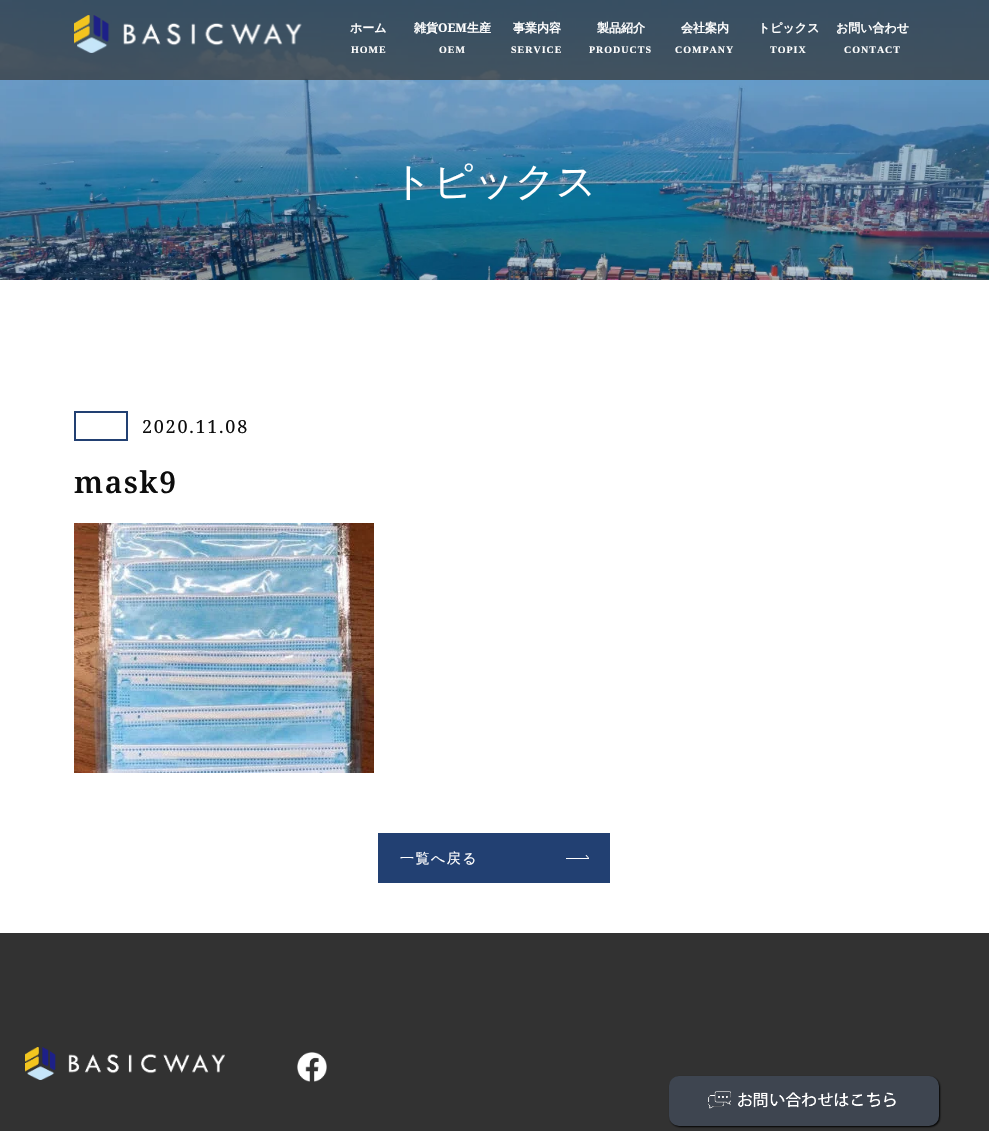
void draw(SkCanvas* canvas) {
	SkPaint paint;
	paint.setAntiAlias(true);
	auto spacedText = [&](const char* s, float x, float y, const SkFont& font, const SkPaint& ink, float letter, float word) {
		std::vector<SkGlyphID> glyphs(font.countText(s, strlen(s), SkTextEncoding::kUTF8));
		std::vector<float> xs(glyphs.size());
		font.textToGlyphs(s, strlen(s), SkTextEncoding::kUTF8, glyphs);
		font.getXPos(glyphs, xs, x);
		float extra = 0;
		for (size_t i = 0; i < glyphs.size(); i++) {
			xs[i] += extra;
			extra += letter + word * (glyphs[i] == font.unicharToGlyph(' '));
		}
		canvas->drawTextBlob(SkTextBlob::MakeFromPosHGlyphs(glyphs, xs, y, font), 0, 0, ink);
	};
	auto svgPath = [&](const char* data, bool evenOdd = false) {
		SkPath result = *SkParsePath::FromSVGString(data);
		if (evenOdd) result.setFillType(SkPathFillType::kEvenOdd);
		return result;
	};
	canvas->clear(0xffffffff);
	canvas->drawImageRect(SkImages::DeferredFromEncodedData(SkData::MakeFromFileName("img2.png")), SkRect::MakeXYWH(0, 0, 989, 280), SkSamplingOptions());
	paint.setColor(0xb3323232);
	canvas->drawRect(SkRect::MakeXYWH(0, 0, 989, 80), paint);
	canvas->drawImageRect(SkImages::DeferredFromEncodedData(SkData::MakeFromFileName("img1.png")), SkRect::MakeXYWH(74, 15, 228, 38), SkSamplingOptions());
	SkFont f1(fontMgr->matchFamilyStyle("WenQuanYi Zen Hei", SkFontStyle::Bold()), 12);
	f1.setSubpixel(true);
	paint.setColor(0xffffffff);
	canvas->drawString("ホーム", 350, 32, f1, paint);
	SkFont f2(fontMgr->matchFamilyStyle("Liberation Serif", SkFontStyle::Bold()), 10);
	f2.setSubpixel(true);
	spacedText("HOME", 351, 53, f2, paint, 1, 0);
	canvas->drawString("雑貨", 414, 32, f1, paint);
	SkFont f3(fontMgr->matchFamilyStyle("Noto Serif", SkFontStyle::Bold()), 12);
	f3.setSubpixel(true);
	canvas->drawString("OEM", 438, 32, f3, paint);
	canvas->drawString("生産", 467, 32, f1, paint);
	spacedText("OEM", 439, 53, f2, paint, 1, 0);
	canvas->drawString("事業内容", 513, 32, f1, paint);
	spacedText("SERVICE", 511, 53, f2, paint, 1, 0);
	canvas->drawString("製品紹介", 597, 32, f1, paint);
	spacedText("PRODUCTS", 589, 53, f2, paint, 1, 0);
	canvas->drawString("会社案内", 681, 32, f1, paint);
	spacedText("COMPANY", 675, 53, f2, paint, 1, 0);
	canvas->drawString("トピックス", 758, 32, f1, paint);
	spacedText("TOPIX", 770, 53, f2, paint, 1, 0);
	canvas->drawString("お問い合わせ", 836, 32, f1, paint);
	spacedText("CONTACT", 844, 53, f2, paint, 1, 0);
	SkFont f4(fontMgr->matchFamilyStyle("WenQuanYi Zen Hei", SkFontStyle(500, SkFontStyle::kNormal_Width, SkFontStyle::kUpright_Slant)), 40);
	f4.setSubpixel(true);
	canvas->drawString("トピックス", 392, 195, f4, paint);
	paint.setStroke(true);
	paint.setStrokeWidth(2);
	paint.setColor(0xff224072);
	canvas->drawRect(SkRect::MakeXYWH(75, 412, 52, 28), paint);
	SkFont f5(fontMgr->matchFamilyStyle("Noto Serif", SkFontStyle::Normal()), 18);
	f5.setSubpixel(true);
	paint.setStroke(false);
	paint.setColor(0xff0d0d0d);
	spacedText("2020.11.08", 142, 433, f5, paint, 1.75, 0);
	SkFont f6(fontMgr->matchFamilyStyle("Noto Serif", SkFontStyle(600, SkFontStyle::kNormal_Width, SkFontStyle::kUpright_Slant)), 30);
	f6.setSubpixel(true);
	spacedText("mask9", 74, 493, f6, paint, 1.5, 0);
	canvas->drawImageRect(SkImages::DeferredFromEncodedData(SkData::MakeFromFileName("img3.png")), SkRect::MakeXYWH(74, 523, 300, 250), SkSamplingOptions());
	paint.setColor(0xff224072);
	canvas->drawRect(SkRect::MakeXYWH(378, 833, 232, 50), paint);
	SkFont f7(fontMgr->matchFamilyStyle("WenQuanYi Zen Hei", SkFontStyle(500, SkFontStyle::kNormal_Width, SkFontStyle::kUpright_Slant)), 14);
	f7.setSubpixel(true);
	paint.setColor(0xffffffff);
	spacedText("一覧へ戻る", 400, 863, f7, paint, 1.5, 0);
	canvas->drawRect(SkRect::MakeXYWH(566, 858, 23, 1), paint);
	canvas->drawPath(svgPath("M586.5 855L589 858L588.5 858.5L585.5 855.5Z"), paint);
	paint.setColor(0xff323232);
	canvas->drawRect(SkRect::MakeXYWH(0, 933, 989, 198), paint);
	canvas->drawImageRect(SkImages::DeferredFromEncodedData(SkData::MakeFromFileName("img4.png")), SkRect::MakeXYWH(25, 1047, 200, 33), SkSamplingOptions());
	canvas->drawImageRect(SkImages::DeferredFromEncodedData(SkData::MakeFromFileName("img5.png")), SkRect::MakeXYWH(297, 1052, 30, 30), SkSamplingOptions());
	paint.setColor(0xff000000);
	paint.setMaskFilter(SkMaskFilter::MakeBlur(kNormal_SkBlurStyle, 1));
	canvas->drawRoundRect(SkRect::MakeXYWH(670, 1077, 270, 50), 10, 10, paint);
	paint.setMaskFilter(nullptr);
	paint.setColor(0xff3e4550);
	canvas->drawRoundRect(SkRect::MakeXYWH(669, 1076, 270, 50), 10, 10, paint);
	canvas->drawImageRect(SkImages::DeferredFromEncodedData(SkData::MakeFromFileName("img6.png")), SkRect::MakeXYWH(708, 1091, 188, 18), SkSamplingOptions());
}
